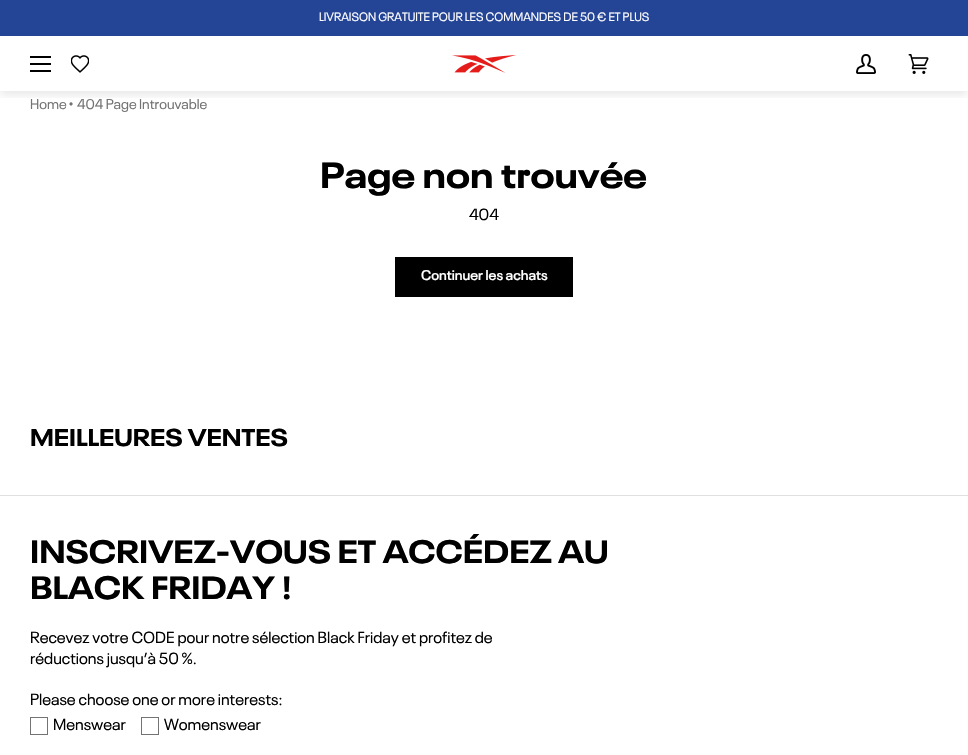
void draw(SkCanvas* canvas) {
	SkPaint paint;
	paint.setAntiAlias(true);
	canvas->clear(0xffffffff);
	canvas->save();
	canvas->clipRect(SkRect::MakeXYWH(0, 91, 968, 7));
	paint.setColor(0x1a000000);
	paint.setMaskFilter(SkMaskFilter::MakeBlur(kNormal_SkBlurStyle, 5));
	canvas->drawRect(SkRect::MakeXYWH(0, 39, 968, 55), paint);
	paint.setMaskFilter(nullptr);
	canvas->restore();
	paint.setColor(0xff244496);
	canvas->drawRect(SkRect::MakeXYWH(0, 0, 968, 36), paint);
	SkFont f1(fontMgr->matchFamilyStyle("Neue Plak", SkFontStyle::Normal()), 12);
	f1.setSubpixel(true);
	paint.setColor(0xffffffff);
	canvas->drawString("LIVRAISON GRATUITE POUR LES COMMANDES DE 50 € ET PLUS", 319, 21, f1, paint);
	paint.setColor(0xff000000);
	canvas->drawRect(SkRect::MakeXYWH(30, 56, 21, 2), paint);
	canvas->drawRect(SkRect::MakeXYWH(30, 63, 21, 2), paint);
	canvas->drawRect(SkRect::MakeXYWH(30, 70, 21, 2), paint);
	canvas->drawImageRect(SkImages::DeferredFromEncodedData(SkData::MakeFromFileName("img1.png")), SkRect::MakeXYWH(71, 55, 18, 18), SkSamplingOptions());
	canvas->drawImageRect(SkImages::DeferredFromEncodedData(SkData::MakeFromFileName("img2.png")), SkRect::MakeXYWH(452, 55, 64, 18), SkSamplingOptions());
	canvas->drawImageRect(SkImages::DeferredFromEncodedData(SkData::MakeFromFileName("img3.png")), SkRect::MakeXYWH(856, 54, 20, 20), SkSamplingOptions());
	canvas->drawImageRect(SkImages::DeferredFromEncodedData(SkData::MakeFromFileName("img4.png")), SkRect::MakeXYWH(908, 54, 21, 20), SkSamplingOptions());
	SkFont f2(fontMgr->matchFamilyStyle("Neue Plak", SkFontStyle::Normal()), 14);
	f2.setSubpixel(true);
	paint.setColor(0xff737373);
	canvas->drawString("Home", 30, 109, f2, paint);
	canvas->drawString("•", 68, 109, f2, paint);
	canvas->drawString("404 Page Introuvable", 77, 109, f2, paint);
	SkFont f3(fontMgr->matchFamilyStyle("Neue Plak", SkFontStyle::Bold()), 36);
	f3.setSubpixel(true);
	paint.setColor(0xff000000);
	canvas->drawString("Page non trouvée", 320, 188, f3, paint);
	SkFont f4(fontMgr->matchFamilyStyle("Neue Plak", SkFontStyle::Normal()), 16);
	f4.setSubpixel(true);
	canvas->drawString("404", 469, 220, f4, paint);
	canvas->drawRect(SkRect::MakeXYWH(395, 257, 178, 40), paint);
	SkFont f5(fontMgr->matchFamilyStyle("Neue Plak", SkFontStyle(600, SkFontStyle::kNormal_Width, SkFontStyle::kUpright_Slant)), 14);
	f5.setSubpixel(true);
	paint.setColor(0xffffffff);
	canvas->drawString("Continuer les achats", 421, 280, f5, paint);
	SkFont f6(fontMgr->matchFamilyStyle("Neue Plak", SkFontStyle::Bold()), 24);
	f6.setSubpixel(true);
	paint.setColor(0xff000000);
	canvas->drawString("MEILLEURES VENTES", 30, 446, f6, paint);
	paint.setColor(0xffe0e0e0);
	canvas->drawRect(SkRect::MakeXYWH(0, 495, 968, 1), paint);
	SkFont f7(fontMgr->matchFamilyStyle("Neue Plak", SkFontStyle::Bold()), 32);
	f7.setSubpixel(true);
	paint.setColor(0xff000000);
	canvas->drawString("INSCRIVEZ-VOUS ET ACCÉDEZ AU", 30, 563, f7, paint);
	canvas->drawString("BLACK FRIDAY !", 30, 599, f7, paint);
	canvas->drawString("Recevez votre CODE pour notre sélection Black Friday et profitez de", 30, 643, f4, paint);
	canvas->drawString("réductions jusqu’à 50 %.", 30, 664, f4, paint);
	canvas->drawString("Please choose one or more interests:", 30, 705, f4, paint);
	paint.setStroke(true);
	paint.setStrokeWidth(1);
	paint.setColor(0xff737373);
	canvas->drawRect(SkRect::MakeXYWH(30.5, 717.5, 17, 17), paint);
	paint.setStroke(false);
	paint.setColor(0xff000000);
	canvas->drawString("Menswear", 53, 730, f4, paint);
	paint.setStroke(true);
	paint.setColor(0xff737373);
	canvas->drawRect(SkRect::MakeXYWH(141.5, 717.5, 17, 17), paint);
	paint.setStroke(false);
	paint.setColor(0xff000000);
	canvas->drawString("Womenswear", 164, 730, f4, paint);
}
